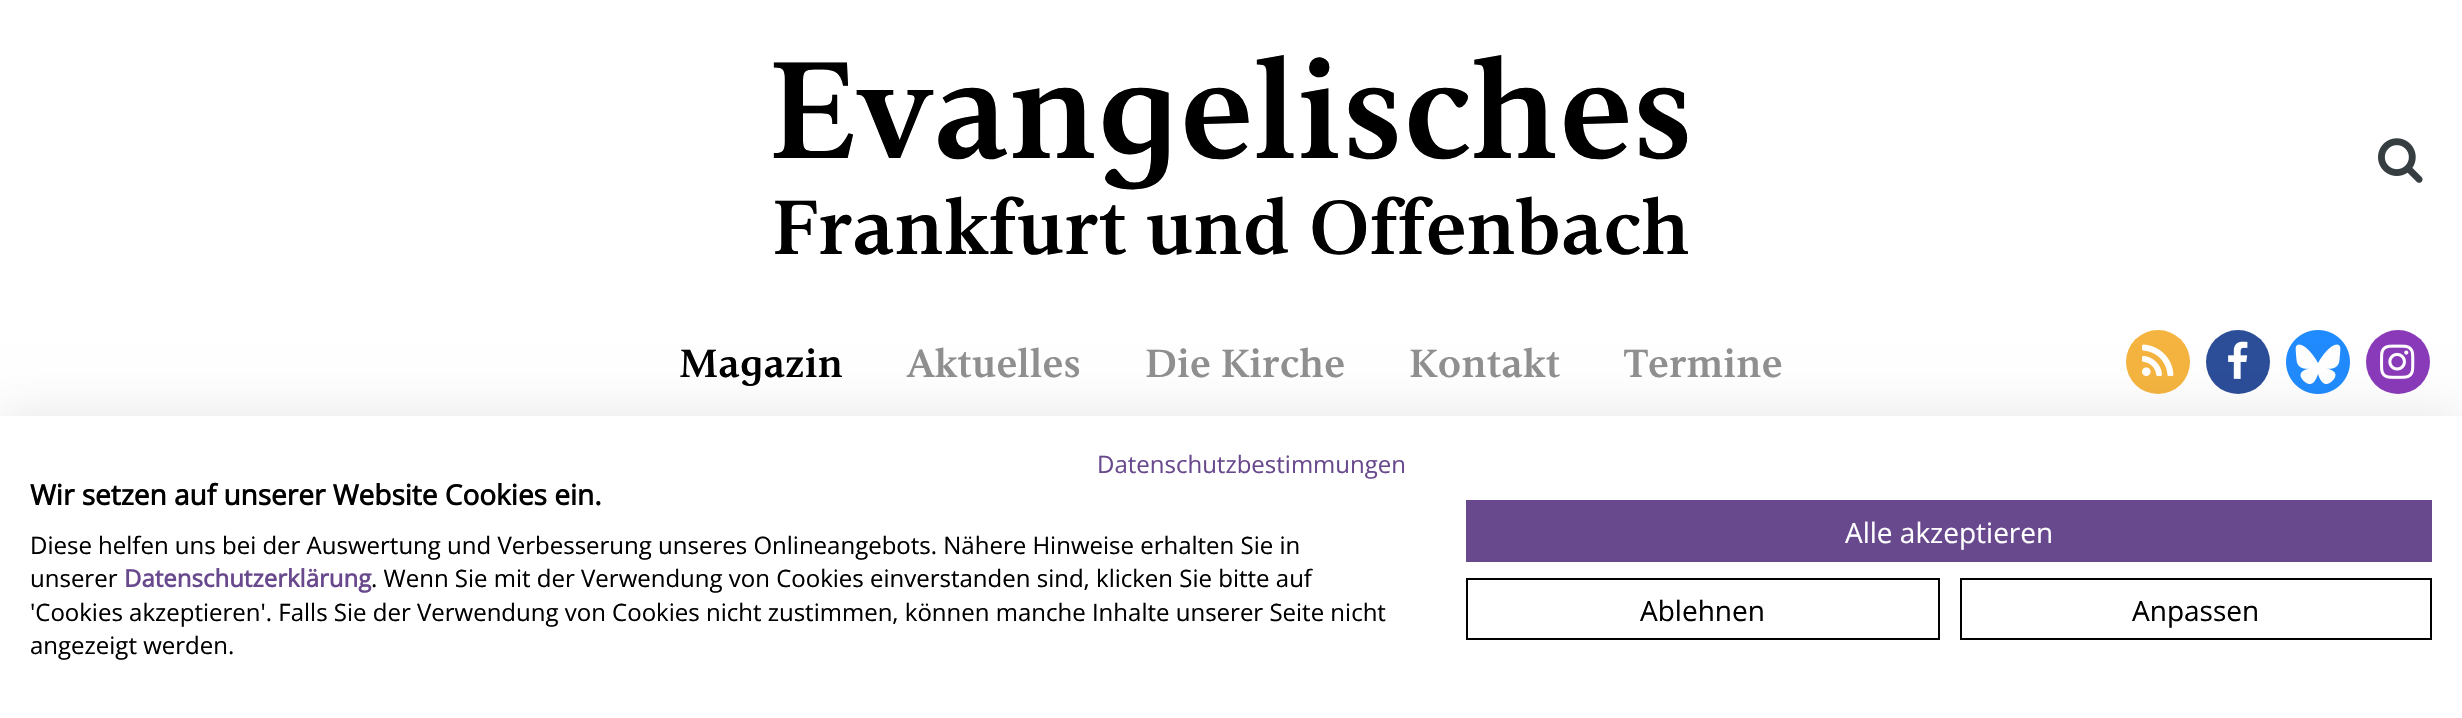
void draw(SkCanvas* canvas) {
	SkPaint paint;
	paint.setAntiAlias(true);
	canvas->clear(0xffffffff);
	SkFont f1(fontMgr->matchFamilyStyle("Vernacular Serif", SkFontStyle(600, SkFontStyle::kNormal_Width, SkFontStyle::kUpright_Slant)), 140);
	f1.setSubpixel(true);
	paint.setColor(0xff000000);
	canvas->drawString("Evangelisches", 768, 158, f1, paint);
	SkFont f2(fontMgr->matchFamilyStyle("Vernacular Serif", SkFontStyle(600, SkFontStyle::kNormal_Width, SkFontStyle::kUpright_Slant)), 78);
	f2.setSubpixel(true);
	canvas->drawString("Frankfurt und Offenbach", 772, 254, f2, paint);
	canvas->drawImageRect(SkImages::DeferredFromEncodedData(SkData::MakeFromFileName("img1.png")), SkRect::MakeXYWH(2378, 138, 45, 45), SkSamplingOptions());
	SkFont f3(fontMgr->matchFamilyStyle("Vernacular Serif", SkFontStyle(600, SkFontStyle::kNormal_Width, SkFontStyle::kUpright_Slant)), 40);
	f3.setSubpixel(true);
	canvas->drawString("Magazin", 679, 377, f3, paint);
	paint.setColor(0xff909090);
	canvas->drawString("Aktuelles", 907, 377, f3, paint);
	canvas->drawString("Die Kirche", 1145, 377, f3, paint);
	canvas->drawString("Kontakt", 1409, 377, f3, paint);
	canvas->drawString("Termine", 1624, 377, f3, paint);
	paint.setColor(0xfff5b43f);
	canvas->drawCircle(2158, 362, 32, paint);
	canvas->drawImageRect(SkImages::DeferredFromEncodedData(SkData::MakeFromFileName("img2.png")), SkRect::MakeXYWH(2142, 344, 32, 32), SkSamplingOptions());
	paint.setColor(0xff2c4d98);
	canvas->drawCircle(2238, 362, 32, paint);
	canvas->drawImageRect(SkImages::DeferredFromEncodedData(SkData::MakeFromFileName("img3.png")), SkRect::MakeXYWH(2228, 341, 20, 38), SkSamplingOptions());
	canvas->drawImageRect(SkImages::DeferredFromEncodedData(SkData::MakeFromFileName("img4.png")), SkRect::MakeXYWH(2286, 330, 64, 64), SkSamplingOptions());
	paint.setColor(0xff8a3ab9);
	canvas->drawCircle(2398, 362, 32, paint);
	canvas->drawImageRect(SkImages::DeferredFromEncodedData(SkData::MakeFromFileName("img5.png")), SkRect::MakeXYWH(2380, 344, 35, 35), SkSamplingOptions());
	paint.setColor(0x1a000000);
	paint.setMaskFilter(SkMaskFilter::MakeBlur(kNormal_SkBlurStyle, 24));
	canvas->drawRect(SkRect::MakeXYWH(0, 416, 2462, 302), paint);
	paint.setMaskFilter(nullptr);
	paint.setColor(0xffffffff);
	canvas->drawRect(SkRect::MakeXYWH(0, 416, 2462, 302), paint);
	SkFont f4(fontMgr->matchFamilyStyle("Open Sans", SkFontStyle::Normal()), 24);
	f4.setSubpixel(true);
	paint.setColor(0xff69498d);
	canvas->drawString("Datenschutzbestimmungen", 1097, 473, f4, paint);
	SkFont f5(fontMgr->matchFamilyStyle("Open Sans", SkFontStyle::Bold()), 28);
	f5.setSubpixel(true);
	paint.setColor(0xff000000);
	canvas->drawString("Wir setzen auf unserer Website Cookies ein.", 30, 505, f5, paint);
	canvas->drawString("Diese helfen uns bei der Auswertung und Verbesserung unseres Onlineangebots. Nähere Hinweise erhalten Sie in", 30, 554, f4, paint);
	canvas->drawString("unserer", 30, 587, f4, paint);
	SkFont f6(fontMgr->matchFamilyStyle("Open Sans", SkFontStyle::Bold()), 24);
	f6.setSubpixel(true);
	paint.setColor(0xff69498d);
	canvas->drawString("Datenschutzerklärung", 124, 587, f6, paint);
	paint.setColor(0xff000000);
	canvas->drawString(". Wenn Sie mit der Verwendung von Cookies einverstanden sind, klicken Sie bitte auf", 371, 587, f4, paint);
	canvas->drawString("'Cookies akzeptieren'. Falls Sie der Verwendung von Cookies nicht zustimmen, können manche Inhalte unserer Seite nicht", 30, 621, f4, paint);
	canvas->drawString("angezeigt werden.", 30, 654, f4, paint);
	paint.setColor(0xff69498d);
	canvas->drawRect(SkRect::MakeXYWH(1466, 500, 966, 62), paint);
	SkFont f7(fontMgr->matchFamilyStyle("Open Sans", SkFontStyle::Normal()), 28);
	f7.setSubpixel(true);
	paint.setColor(0xffffffff);
	canvas->drawString("Alle akzeptieren", 1845, 543, f7, paint);
	paint.setStroke(true);
	paint.setStrokeWidth(2);
	paint.setColor(0xff000000);
	canvas->drawRect(SkRect::MakeXYWH(1467, 579, 472, 60), paint);
	paint.setStroke(false);
	canvas->drawString("Ablehnen", 1640, 621, f7, paint);
	paint.setStroke(true);
	canvas->drawRect(SkRect::MakeXYWH(1961, 579, 470, 60), paint);
	paint.setStroke(false);
	canvas->drawString("Anpassen", 2132, 621, f7, paint);
}
